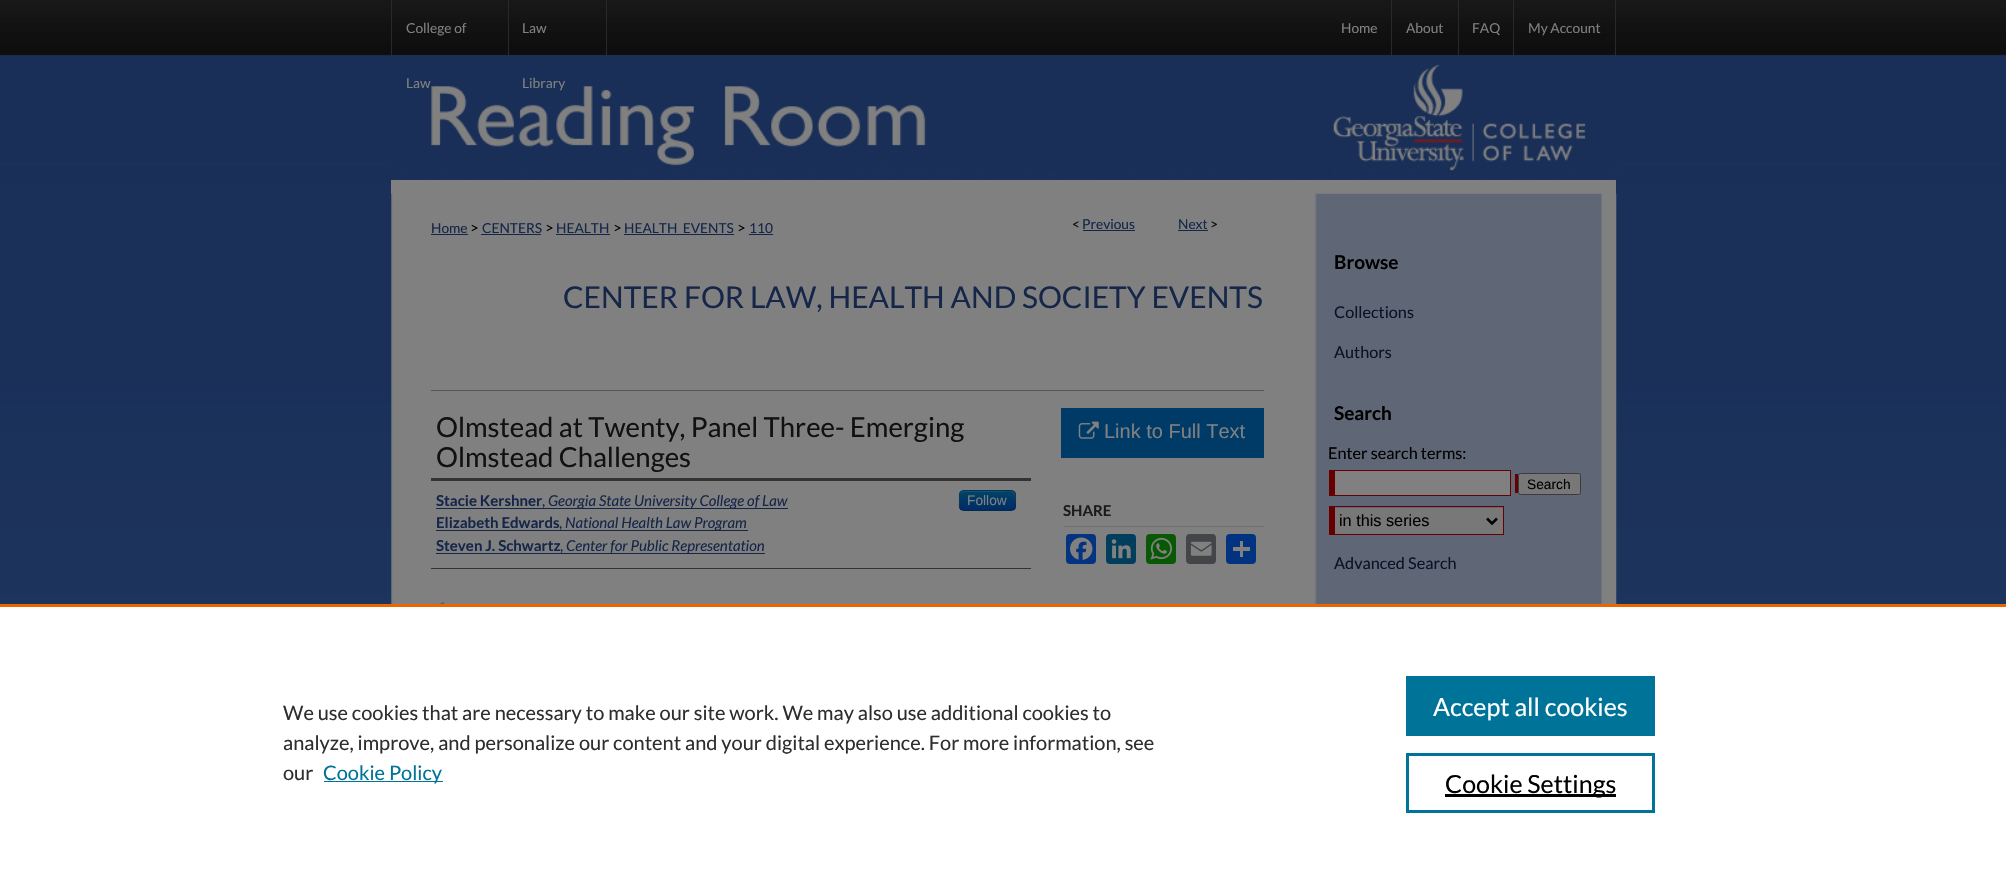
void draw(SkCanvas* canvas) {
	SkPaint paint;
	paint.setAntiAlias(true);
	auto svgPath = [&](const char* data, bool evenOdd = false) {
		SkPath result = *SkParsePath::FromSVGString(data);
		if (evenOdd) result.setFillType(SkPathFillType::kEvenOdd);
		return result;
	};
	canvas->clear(0xffffffff);
	canvas->drawImageRect(SkImages::DeferredFromEncodedData(SkData::MakeFromFileName("img1.png")), SkRect::MakeXYWH(0, 0, 2006, 604), SkSamplingOptions());
	paint.setColor(0xff808080);
	canvas->drawRect(SkRect::MakeXYWH(391, 180, 1225, 14), paint);
	paint.setColor(0xff0e0e0e);
	canvas->drawRect(SkRect::MakeXYWH(392, 54, 1223, 1), paint);
	canvas->drawImageRect(SkImages::DeferredFromEncodedData(SkData::MakeFromFileName("img2.png")), SkRect::MakeXYWH(392, 0, 1223, 36), SkSamplingOptions());
	paint.setColor(0xff292929);
	canvas->drawRect(SkRect::MakeXYWH(391, 0, 1, 55), paint);
	canvas->drawRect(SkRect::MakeXYWH(508, 0, 1, 55), paint);
	SkFont f1(fontMgr->matchFamilyStyle("Lato", SkFontStyle::Normal()), 13.75);
	f1.setSubpixel(true);
	paint.setColor(0xff808080);
	canvas->drawString("College of", 406, 33, f1, paint);
	canvas->drawImageRect(SkImages::DeferredFromEncodedData(SkData::MakeFromFileName("img3.png")), SkRect::MakeXYWH(391, 55, 926, 125), SkSamplingOptions());
	canvas->drawString("Law", 406, 88, f1, paint);
	paint.setColor(0xff292929);
	canvas->drawRect(SkRect::MakeXYWH(606, 0, 1, 55), paint);
	paint.setColor(0xff808080);
	canvas->drawString("Law", 522, 33, f1, paint);
	canvas->drawString("Library", 522, 88, f1, paint);
	paint.setColor(0xff292929);
	canvas->drawRect(SkRect::MakeXYWH(1391, 0, 1, 55), paint);
	paint.setColor(0xff808080);
	canvas->drawString("Home", 1341, 33, f1, paint);
	paint.setColor(0xff292929);
	canvas->drawRect(SkRect::MakeXYWH(1458, 0, 1, 55), paint);
	paint.setColor(0xff808080);
	canvas->drawString("About", 1406, 33, f1, paint);
	paint.setColor(0xff292929);
	canvas->drawRect(SkRect::MakeXYWH(1513, 0, 1, 55), paint);
	paint.setColor(0xff808080);
	canvas->drawString("FAQ", 1472, 33, f1, paint);
	paint.setColor(0xff292929);
	canvas->drawRect(SkRect::MakeXYWH(1615, 0, 1, 55), paint);
	paint.setColor(0xff808080);
	canvas->drawString("My Account", 1528, 33, f1, paint);
	canvas->drawImageRect(SkImages::DeferredFromEncodedData(SkData::MakeFromFileName("img4.png")), SkRect::MakeXYWH(1316, 55, 301, 125), SkSamplingOptions());
	canvas->drawImageRect(SkImages::DeferredFromEncodedData(SkData::MakeFromFileName("img5.png")), SkRect::MakeXYWH(391, 193, 1226, 411), SkSamplingOptions());
	paint.setColor(0xff152649);
	canvas->drawString("Home", 431, 233, f1, paint);
	canvas->drawRect(SkRect::MakeXYWH(431, 234, 37, 1), paint);
	SkFont f2(fontMgr->matchFamilyStyle("Lato", SkFontStyle::Normal()), 15);
	f2.setSubpixel(true);
	paint.setColor(0xff000000);
	canvas->drawString(">", 470, 233, f2, paint);
	paint.setColor(0xff152649);
	canvas->drawString("CENTERS", 482, 233, f1, paint);
	canvas->drawRect(SkRect::MakeXYWH(481, 234, 60, 1), paint);
	paint.setColor(0xff000000);
	canvas->drawString(">", 545, 233, f2, paint);
	paint.setColor(0xff152649);
	canvas->drawString("HEALTH", 556, 233, f1, paint);
	canvas->drawRect(SkRect::MakeXYWH(556, 234, 54, 1), paint);
	paint.setColor(0xff000000);
	canvas->drawString(">", 613, 233, f2, paint);
	paint.setColor(0xff152649);
	canvas->drawRect(SkRect::MakeXYWH(624, 234, 110, 1), paint);
	canvas->drawString("HEALTH_EVENTS", 624, 233, f1, paint);
	paint.setColor(0xff000000);
	canvas->drawString(">", 737, 233, f2, paint);
	paint.setColor(0xff152649);
	canvas->drawString("110", 749, 233, f1, paint);
	canvas->drawRect(SkRect::MakeXYWH(749, 234, 24, 1), paint);
	paint.setColor(0xff111111);
	canvas->drawString("<", 1072, 229, f1, paint);
	paint.setColor(0xff152649);
	canvas->drawString("Previous", 1082, 229, f1, paint);
	canvas->drawRect(SkRect::MakeXYWH(1083, 230, 52, 1), paint);
	canvas->drawString("Next", 1178, 229, f1, paint);
	canvas->drawRect(SkRect::MakeXYWH(1178, 230, 30, 1), paint);
	paint.setColor(0xff111111);
	canvas->drawString(">", 1210, 229, f1, paint);
	SkFont f3(fontMgr->matchFamilyStyle("Lato", SkFontStyle::Normal()), 30);
	f3.setSubpixel(true);
	paint.setColor(0xff152649);
	canvas->drawString("CENTER FOR LAW, HEALTH AND SOCIETY EVENTS", 563, 308, f3, paint);
	paint.setColor(0xff555555);
	canvas->drawRect(SkRect::MakeXYWH(431, 390, 833, 1), paint);
	SkFont f4(fontMgr->matchFamilyStyle("Lato", SkFontStyle::Normal()), 27.5);
	f4.setSubpixel(true);
	paint.setColor(0xff111111);
	canvas->drawString("Olmstead at Twenty, Panel Three- Emerging", 436, 437, f4, paint);
	canvas->drawString("Olmstead Challenges", 436, 467, f4, paint);
	paint.setColor(0xff333333);
	canvas->drawRect(SkRect::MakeXYWH(431, 478, 600, 3), paint);
	canvas->drawRect(SkRect::MakeXYWH(431, 568, 600, 1), paint);
	SkFont f5(fontMgr->matchFamilyStyle("Lato", SkFontStyle::Bold()), 15);
	f5.setSubpixel(true);
	paint.setColor(0xff152649);
	canvas->drawString("Stacie Kershner", 436, 506, f5, paint);
	canvas->drawRect(SkRect::MakeXYWH(436, 508, 352, 1), paint);
	canvas->drawString(",", 542, 506, f2, paint);
	SkFont f6(fontMgr->matchFamilyStyle("Lato", SkFontStyle::Italic()), 15);
	f6.setSubpixel(true);
	canvas->drawString("Georgia State University College of Law", 548, 506, f6, paint);
	paint.setColor(0xff003a66);
	canvas->drawRoundRect(SkRect::MakeXYWH(959, 490, 57, 21), 5, 5, paint);
	canvas->save();
	canvas->clipPath(svgPath("M964 490H1011C1014 490 1016 492 1016 495V506C1016 509 1014 511 1011 511H964C961 511 959 509 959 506V495C959 492 961 490 964 490Z"), true);
	{
		const SkColor colors[] = {0xff004466, 0xff002b66};
		const float stops[] = {0, 1};
		const SkPoint ends[] = {{988, 491}, {988, 510}};
		paint.setShader(SkGradientShader::MakeLinear(ends, colors, stops, 2, SkTileMode::kClamp));
		paint.setAlpha(255);
	}
	canvas->drawRect(SkRect::MakeXYWH(959, 491, 57, 19), paint);
	canvas->restore();
	paint.setShader(nullptr);
	paint.setColor(0x33808080);
	canvas->drawPath(svgPath("M964 492H995C1013 492 1015 487 1015 506C1015 502 1017 492 1012 491H972C962 491 960 489 960 499V508C960 504 958 492 964 492Z"), paint);
	paint.setStroke(true);
	paint.setStrokeWidth(1.2);
	paint.setColor(0x40000000);
	canvas->drawPath(svgPath("M1014.5 509.5C1013.5 510 1012.5 510.5 1011 510.5H964C962.5 510.5 961.5 510 960.5 509.5"), paint);
	paint.setColor(0x1a000000);
	canvas->drawPath(svgPath("M960.5 509.5C958.5 507 959.5 503.5 959.5 500.5C959.5 489.5 960 490.5 971.5 490.5H1003.5C1015 490.5 1015.5 489.5 1015.5 500.5C1015.5 503.5 1016.5 507 1014.5 509.5"), paint);
	SkFont f7(fontMgr->matchFamilyStyle("Liberation Sans", SkFontStyle::Normal()), 13.75);
	f7.setSubpixel(true);
	paint.setStroke(false);
	paint.setColor(0xff808080);
	canvas->drawString("Follow", 967, 505, f7, paint);
	paint.setColor(0xff152649);
	canvas->drawString("Elizabeth Edwards", 436, 528, f5, paint);
	canvas->drawRect(SkRect::MakeXYWH(436, 530, 312, 1), paint);
	canvas->drawString(",", 559, 528, f2, paint);
	canvas->drawString("National Health Law Program", 565, 528, f6, paint);
	canvas->drawString("Steven J. Schwartz", 436, 551, f5, paint);
	canvas->drawRect(SkRect::MakeXYWH(436, 553, 329, 1), paint);
	canvas->drawString(",", 560, 551, f2, paint);
	canvas->drawString("Center for Public Representation", 566, 551, f6, paint);
	canvas->drawImageRect(SkImages::DeferredFromEncodedData(SkData::MakeFromFileName("img6.png")), SkRect::MakeXYWH(437, 602, 9, 2), SkSamplingOptions());
	paint.setColor(0xff003a66);
	canvas->drawRect(SkRect::MakeXYWH(1061, 408, 203, 50), paint);
	canvas->drawImageRect(SkImages::DeferredFromEncodedData(SkData::MakeFromFileName("img7.png")), SkRect::MakeXYWH(1078, 421, 21, 18), SkSamplingOptions());
	SkFont f8(fontMgr->matchFamilyStyle("Liberation Sans", SkFontStyle::Normal()), 20);
	f8.setSubpixel(true);
	paint.setColor(0xff808080);
	canvas->drawString("Link to Full Text", 1104, 438, f8, paint);
	paint.setColor(0xff6f6f6f);
	canvas->drawRect(SkRect::MakeXYWH(1064, 526, 200, 1), paint);
	paint.setColor(0xff1a1a1a);
	canvas->drawString("SHARE", 1063, 516, f5, paint);
	paint.setColor(0xff043380);
	canvas->drawRoundRect(SkRect::MakeXYWH(1066, 534, 30, 30), 4, 4, paint);
	canvas->drawImageRect(SkImages::DeferredFromEncodedData(SkData::MakeFromFileName("img8.png")), SkRect::MakeXYWH(1070, 537, 23, 23), SkSamplingOptions());
	paint.setColor(0xff003e5b);
	canvas->drawRoundRect(SkRect::MakeXYWH(1106, 534, 30, 30), 4, 4, paint);
	canvas->drawImageRect(SkImages::DeferredFromEncodedData(SkData::MakeFromFileName("img9.png")), SkRect::MakeXYWH(1111, 539, 20, 20), SkSamplingOptions());
	paint.setColor(0xff095805);
	canvas->drawRoundRect(SkRect::MakeXYWH(1146, 534, 30, 30), 4, 4, paint);
	canvas->drawImageRect(SkImages::DeferredFromEncodedData(SkData::MakeFromFileName("img10.png")), SkRect::MakeXYWH(1150, 537, 22, 23), SkSamplingOptions());
	paint.setColor(0xff444548);
	canvas->drawRoundRect(SkRect::MakeXYWH(1186, 534, 30, 30), 4, 4, paint);
	canvas->drawImageRect(SkImages::DeferredFromEncodedData(SkData::MakeFromFileName("img11.png")), SkRect::MakeXYWH(1190, 541, 22, 15), SkSamplingOptions());
	paint.setColor(0xff013380);
	canvas->drawRoundRect(SkRect::MakeXYWH(1226, 534, 30, 30), 4, 4, paint);
	paint.setColor(0xff808080);
	canvas->drawRect(SkRect::MakeXYWH(1240, 541, 3, 16), paint);
	canvas->drawRect(SkRect::MakeXYWH(1233, 547, 17, 4), paint);
	SkFont f9(fontMgr->matchFamilyStyle("Lato", SkFontStyle::Bold()), 19);
	f9.setSubpixel(true);
	paint.setColor(0xff000000);
	canvas->drawString("Browse", 1334, 269, f9, paint);
	SkFont f10(fontMgr->matchFamilyStyle("Lato", SkFontStyle::Normal()), 16.25);
	f10.setSubpixel(true);
	paint.setColor(0xff0a1324);
	canvas->drawString("Collections", 1334, 318, f10, paint);
	canvas->drawString("Authors", 1334, 358, f10, paint);
	paint.setColor(0xff000000);
	canvas->drawString("Search", 1334, 420, f9, paint);
	canvas->drawString("Enter search terms:", 1328, 459, f10, paint);
	paint.setColor(0xff660000);
	canvas->drawRect(SkRect::MakeXYWH(1329, 470, 182, 26), paint);
	canvas->drawRect(SkRect::MakeXYWH(1515, 474, 3, 19), paint);
	paint.setColor(0xff808080);
	canvas->drawRect(SkRect::MakeXYWH(1335, 471, 175, 24), paint);
	paint.setColor(0xff787878);
	canvas->drawRoundRect(SkRect::MakeXYWH(1518.5, 473.5, 62, 21), 2, 2, paint);
	paint.setStroke(true);
	paint.setStrokeWidth(1);
	paint.setColor(0xff3b3b3b);
	canvas->drawRoundRect(SkRect::MakeXYWH(1518.5, 473.5, 62, 21), 2, 2, paint);
	paint.setStroke(false);
	paint.setColor(0xff000000);
	canvas->drawString("Search", 1527, 489, f7, paint);
	paint.setColor(0xff787878);
	canvas->drawRect(SkRect::MakeXYWH(1335, 508, 168, 26), paint);
	paint.setColor(0xff660000);
	canvas->drawRect(SkRect::MakeXYWH(1329, 506, 175, 1), paint);
	canvas->drawRect(SkRect::MakeXYWH(1503, 506, 1, 29), paint);
	canvas->drawRect(SkRect::MakeXYWH(1329, 534, 175, 1), paint);
	canvas->drawRect(SkRect::MakeXYWH(1329, 506, 6, 29), paint);
	paint.setStroke(true);
	paint.setStrokeWidth(2.5);
	paint.setColor(0xff000000);
	canvas->drawPath(svgPath("M1487 518.5L1492 523.5L1497 518.5"), paint);
	SkFont f11(fontMgr->matchFamilyStyle("Liberation Sans", SkFontStyle::Normal()), 16.25);
	f11.setSubpixel(true);
	paint.setStroke(false);
	canvas->drawString("in this series", 1339, 526, f11, paint);
	paint.setColor(0xff0a1324);
	canvas->drawString("Advanced Search", 1334, 569, f10, paint);
	paint.setColor(0xffeb6500);
	canvas->drawRect(SkRect::MakeXYWH(0, 604, 2006, 3), paint);
	SkFont f12(fontMgr->matchFamilyStyle("Lato", SkFontStyle::Normal()), 20);
	f12.setSubpixel(true);
	paint.setColor(0xff2e2e2e);
	canvas->drawString("We use cookies that are necessary to make our site work. We may also use additional cookies to", 283, 720, f12, paint);
	canvas->drawString("analyze, improve, and personalize our content and your digital experience. For more information, see", 283, 750, f12, paint);
	canvas->drawString("our", 283, 780, f12, paint);
	paint.setColor(0xff007398);
	canvas->drawRect(SkRect::MakeXYWH(324, 781, 119, 1), paint);
	canvas->drawString("Cookie Policy", 323, 780, f12, paint);
	canvas->drawRect(SkRect::MakeXYWH(1406, 676, 249, 60), paint);
	SkFont f13(fontMgr->matchFamilyStyle("Lato", SkFontStyle::Normal()), 25);
	f13.setSubpixel(true);
	paint.setColor(0xffffffff);
	canvas->drawString("Accept all cookies", 1433, 716, f13, paint);
	paint.setStroke(true);
	paint.setStrokeWidth(3);
	paint.setColor(0xff007398);
	canvas->drawRect(SkRect::MakeXYWH(1407.5, 754.5, 246, 57), paint);
	paint.setStroke(false);
	paint.setColor(0xff000000);
	canvas->drawRect(SkRect::MakeXYWH(1445, 794, 171, 3), paint);
	canvas->drawString("Cookie Settings", 1445, 793, f13, paint);
}
